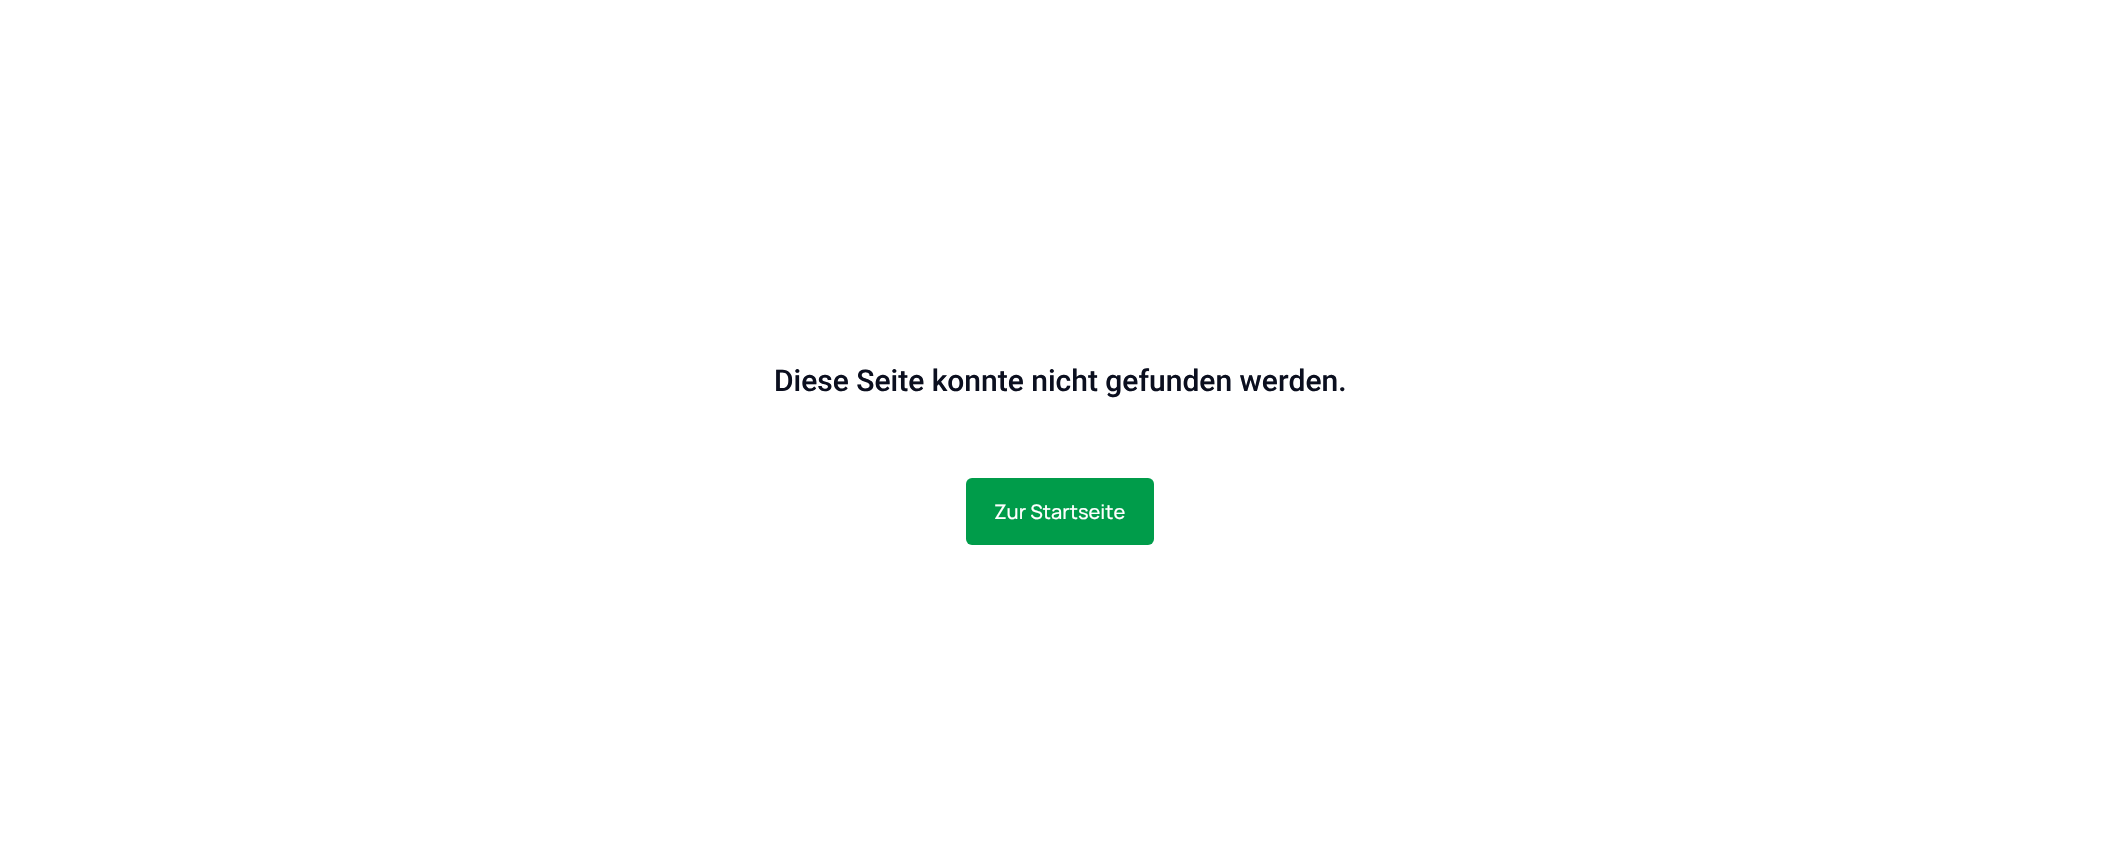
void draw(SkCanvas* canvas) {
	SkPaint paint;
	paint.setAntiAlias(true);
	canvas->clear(0xffffffff);
	SkFont f1(fontMgr->matchFamilyStyle("Roboto", SkFontStyle(500, SkFontStyle::kNormal_Width, SkFontStyle::kUpright_Slant)), 30);
	f1.setSubpixel(true);
	paint.setColor(0xff0b0f1f);
	canvas->drawString("Diese Seite konnte nicht gefunden werden.", 774, 391, f1, paint);
	paint.setColor(0xff009c4a);
	canvas->drawRoundRect(SkRect::MakeXYWH(966, 478, 188, 67), 6, 6, paint);
	SkFont f2(fontMgr->matchFamilyStyle("Manrope", SkFontStyle(500, SkFontStyle::kNormal_Width, SkFontStyle::kUpright_Slant)), 20);
	f2.setSubpixel(true);
	paint.setColor(0xffffffff);
	canvas->drawString("Zur Startseite", 994, 519, f2, paint);
}
